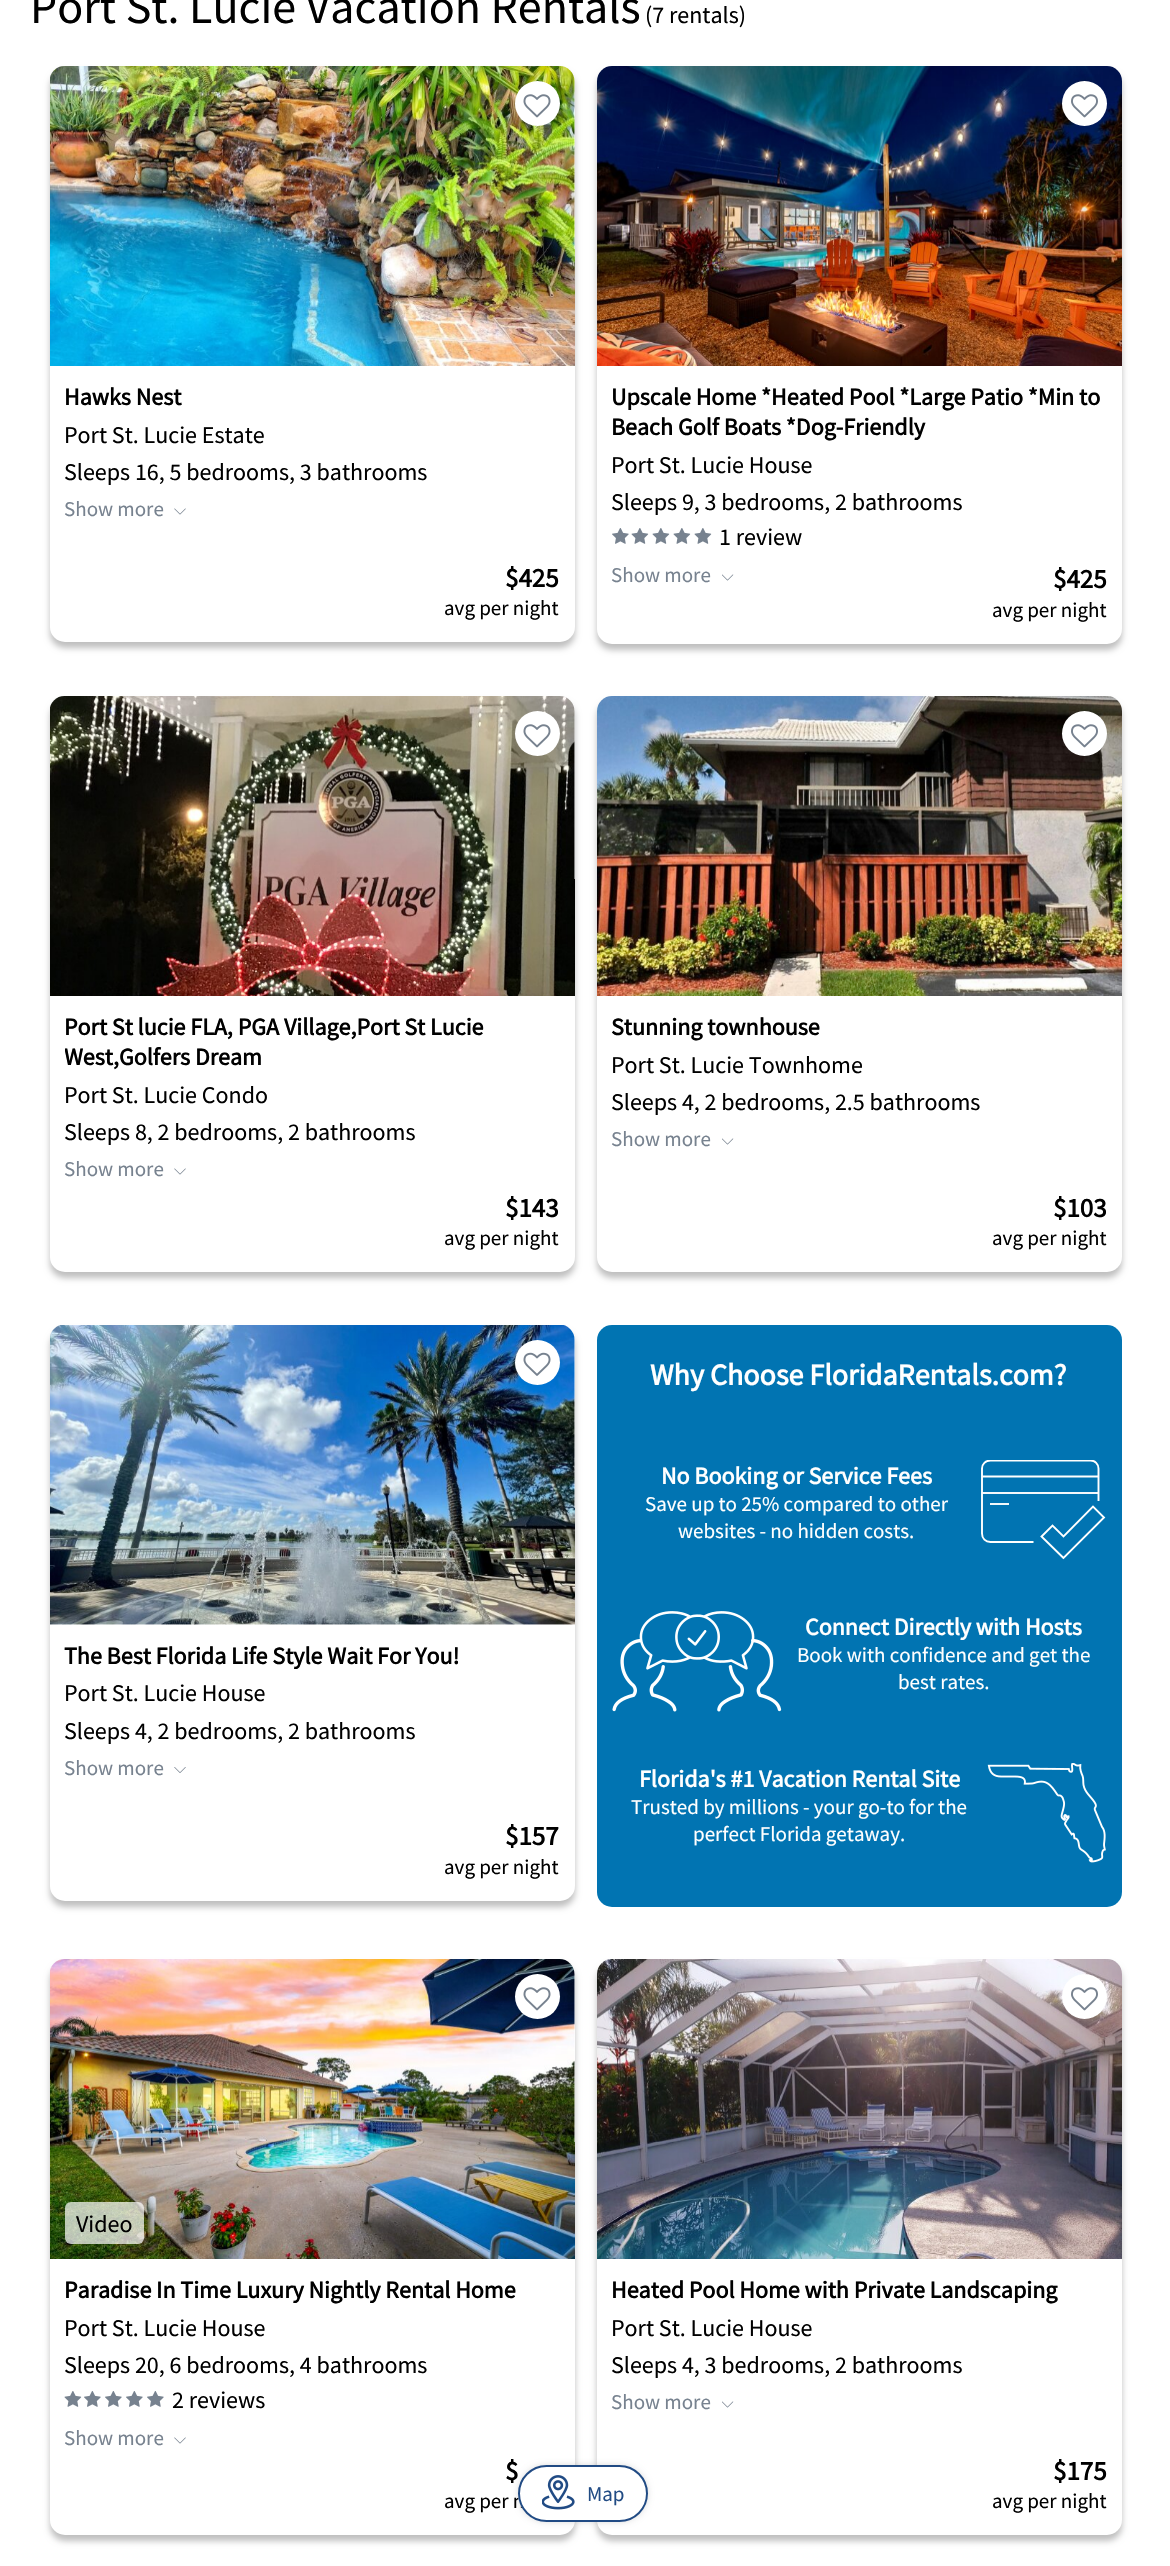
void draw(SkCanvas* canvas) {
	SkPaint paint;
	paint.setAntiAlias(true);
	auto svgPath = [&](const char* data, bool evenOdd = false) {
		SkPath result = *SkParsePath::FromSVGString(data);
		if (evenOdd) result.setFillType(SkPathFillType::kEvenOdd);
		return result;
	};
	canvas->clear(0xffffffff);
	SkFont f1(fontMgr->matchFamilyStyle("Source Sans Pro", SkFontStyle::Normal()), 48);
	f1.setSubpixel(true);
	paint.setColor(0xff000000);
	canvas->drawString("Port St. Lucie Vacation Rentals", 30, 23, f1, paint);
	SkFont f2(fontMgr->matchFamilyStyle("Source Sans Pro", SkFontStyle::Normal()), 24);
	f2.setSubpixel(true);
	canvas->drawString("(7 rentals)", 645, 23, f2, paint);
	paint.setColor(0x40000000);
	paint.setMaskFilter(SkMaskFilter::MakeBlur(kNormal_SkBlurStyle, 3));
	canvas->drawRoundRect(SkRect::MakeXYWH(50, 72, 525, 576), 15, 15, paint);
	paint.setMaskFilter(nullptr);
	paint.setColor(0xffffffff);
	canvas->drawRoundRect(SkRect::MakeXYWH(50, 66, 525, 576), 15, 15, paint);
	canvas->drawImageRect(SkImages::DeferredFromEncodedData(SkData::MakeFromFileName("img1.png")), SkRect::MakeXYWH(50, 66, 525, 300), SkSamplingOptions());
	canvas->drawCircle(537.5, 103.5, 22.5, paint);
	canvas->drawImageRect(SkImages::DeferredFromEncodedData(SkData::MakeFromFileName("img2.png")), SkRect::MakeXYWH(523, 94, 28, 24), SkSamplingOptions());
	SkFont f3(fontMgr->matchFamilyStyle("Source Sans Pro", SkFontStyle::Bold()), 24);
	f3.setSubpixel(true);
	paint.setColor(0xff000000);
	canvas->drawString("Hawks Nest", 64, 405, f3, paint);
	canvas->drawString("Port St. Lucie Estate", 64, 443, f2, paint);
	canvas->drawString("Sleeps 16, 5 bedrooms, 3 bathrooms", 64, 480, f2, paint);
	canvas->drawImageRect(SkImages::DeferredFromEncodedData(SkData::MakeFromFileName("img3.png")), SkRect::MakeXYWH(174, 508, 12, 7), SkSamplingOptions());
	SkFont f4(fontMgr->matchFamilyStyle("Source Sans Pro", SkFontStyle::Normal()), 21);
	f4.setSubpixel(true);
	paint.setColor(0xff77828f);
	canvas->drawString("Show more", 64, 516, f4, paint);
	SkFont f5(fontMgr->matchFamilyStyle("Source Sans Pro", SkFontStyle::Bold()), 27);
	f5.setSubpixel(true);
	paint.setColor(0xff000000);
	canvas->drawString("$425", 505, 587, f5, paint);
	canvas->drawString("avg per night", 444, 615, f4, paint);
	paint.setColor(0x40000000);
	paint.setMaskFilter(SkMaskFilter::MakeBlur(kNormal_SkBlurStyle, 3));
	canvas->drawRoundRect(SkRect::MakeXYWH(597, 72, 525, 578), 15, 15, paint);
	paint.setMaskFilter(nullptr);
	paint.setColor(0xffffffff);
	canvas->drawRoundRect(SkRect::MakeXYWH(597, 66, 525, 578), 15, 15, paint);
	canvas->drawImageRect(SkImages::DeferredFromEncodedData(SkData::MakeFromFileName("img4.png")), SkRect::MakeXYWH(597, 66, 525, 300), SkSamplingOptions());
	canvas->drawCircle(1084.5, 103.5, 22.5, paint);
	canvas->drawImageRect(SkImages::DeferredFromEncodedData(SkData::MakeFromFileName("img5.png")), SkRect::MakeXYWH(1071, 94, 27, 24), SkSamplingOptions());
	paint.setColor(0xff000000);
	canvas->drawString("Upscale Home *Heated Pool *Large Patio *Min to", 611, 405, f3, paint);
	canvas->drawString("Beach Golf Boats *Dog-Friendly", 611, 435, f3, paint);
	canvas->drawString("Port St. Lucie House", 611, 473, f2, paint);
	canvas->drawString("Sleeps 9, 3 bedrooms, 2 bathrooms", 611, 510, f2, paint);
	canvas->drawImageRect(SkImages::DeferredFromEncodedData(SkData::MakeFromFileName("img6.png")), SkRect::MakeXYWH(612, 528, 17, 16), SkSamplingOptions());
	canvas->drawImageRect(SkImages::DeferredFromEncodedData(SkData::MakeFromFileName("img7.png")), SkRect::MakeXYWH(631, 528, 18, 16), SkSamplingOptions());
	canvas->drawImageRect(SkImages::DeferredFromEncodedData(SkData::MakeFromFileName("img7.png")), SkRect::MakeXYWH(652, 528, 18, 16), SkSamplingOptions());
	canvas->drawImageRect(SkImages::DeferredFromEncodedData(SkData::MakeFromFileName("img7.png")), SkRect::MakeXYWH(673, 528, 18, 16), SkSamplingOptions());
	canvas->drawImageRect(SkImages::DeferredFromEncodedData(SkData::MakeFromFileName("img7.png")), SkRect::MakeXYWH(694, 528, 18, 16), SkSamplingOptions());
	canvas->drawString("1 review", 719, 545, f2, paint);
	canvas->drawImageRect(SkImages::DeferredFromEncodedData(SkData::MakeFromFileName("img8.png")), SkRect::MakeXYWH(722, 574, 12, 7), SkSamplingOptions());
	paint.setColor(0xff77828f);
	canvas->drawString("Show more", 611, 582, f4, paint);
	paint.setColor(0xff000000);
	canvas->drawString("$425", 1053, 588, f5, paint);
	canvas->drawString("avg per night", 992, 617, f4, paint);
	paint.setColor(0x40000000);
	paint.setMaskFilter(SkMaskFilter::MakeBlur(kNormal_SkBlurStyle, 3));
	canvas->drawRoundRect(SkRect::MakeXYWH(50, 702, 525, 576), 15, 15, paint);
	paint.setMaskFilter(nullptr);
	paint.setColor(0xffffffff);
	canvas->drawRoundRect(SkRect::MakeXYWH(50, 696, 525, 576), 15, 15, paint);
	canvas->drawImageRect(SkImages::DeferredFromEncodedData(SkData::MakeFromFileName("img9.png")), SkRect::MakeXYWH(50, 696, 525, 300), SkSamplingOptions());
	canvas->drawCircle(537.5, 733.5, 22.5, paint);
	canvas->drawImageRect(SkImages::DeferredFromEncodedData(SkData::MakeFromFileName("img2.png")), SkRect::MakeXYWH(523, 724, 28, 24), SkSamplingOptions());
	paint.setColor(0xff000000);
	canvas->drawString("Port St lucie FLA, PGA Village,Port St Lucie", 64, 1035, f3, paint);
	canvas->save();
	canvas->clipRect(SkRect::MakeXYWH(65, 996, 495, 75));
	canvas->drawString("West,Golfers Dream", 64, 1065, f3, paint);
	canvas->restore();
	canvas->drawString("Port St. Lucie Condo", 64, 1103, f2, paint);
	canvas->drawString("Sleeps 8, 2 bedrooms, 2 bathrooms", 64, 1140, f2, paint);
	canvas->drawImageRect(SkImages::DeferredFromEncodedData(SkData::MakeFromFileName("img3.png")), SkRect::MakeXYWH(174, 1168, 12, 7), SkSamplingOptions());
	paint.setColor(0xff77828f);
	canvas->drawString("Show more", 64, 1176, f4, paint);
	paint.setColor(0xff000000);
	canvas->drawString("$143", 505, 1217, f5, paint);
	canvas->drawString("avg per night", 444, 1245, f4, paint);
	paint.setColor(0x40000000);
	paint.setMaskFilter(SkMaskFilter::MakeBlur(kNormal_SkBlurStyle, 3));
	canvas->drawRoundRect(SkRect::MakeXYWH(597, 702, 525, 576), 15, 15, paint);
	paint.setMaskFilter(nullptr);
	paint.setColor(0xffffffff);
	canvas->drawRoundRect(SkRect::MakeXYWH(597, 696, 525, 576), 15, 15, paint);
	canvas->drawImageRect(SkImages::DeferredFromEncodedData(SkData::MakeFromFileName("img10.png")), SkRect::MakeXYWH(597, 696, 525, 300), SkSamplingOptions());
	canvas->drawCircle(1084.5, 733.5, 22.5, paint);
	canvas->drawImageRect(SkImages::DeferredFromEncodedData(SkData::MakeFromFileName("img5.png")), SkRect::MakeXYWH(1071, 724, 27, 24), SkSamplingOptions());
	paint.setColor(0xff000000);
	canvas->drawString("Stunning townhouse", 611, 1035, f3, paint);
	canvas->drawString("Port St. Lucie Townhome", 611, 1073, f2, paint);
	canvas->drawString("Sleeps 4, 2 bedrooms, 2.5 bathrooms", 611, 1110, f2, paint);
	canvas->drawImageRect(SkImages::DeferredFromEncodedData(SkData::MakeFromFileName("img8.png")), SkRect::MakeXYWH(722, 1138, 12, 7), SkSamplingOptions());
	paint.setColor(0xff77828f);
	canvas->drawString("Show more", 611, 1146, f4, paint);
	paint.setColor(0xff000000);
	canvas->drawString("$103", 1053, 1217, f5, paint);
	canvas->drawString("avg per night", 992, 1245, f4, paint);
	paint.setColor(0x40000000);
	paint.setMaskFilter(SkMaskFilter::MakeBlur(kNormal_SkBlurStyle, 3));
	canvas->drawRoundRect(SkRect::MakeXYWH(50, 1331, 525, 576), 15, 15, paint);
	paint.setMaskFilter(nullptr);
	paint.setColor(0xffffffff);
	canvas->drawRoundRect(SkRect::MakeXYWH(50, 1325, 525, 576), 15, 15, paint);
	canvas->drawImageRect(SkImages::DeferredFromEncodedData(SkData::MakeFromFileName("img11.png")), SkRect::MakeXYWH(50, 1325, 525, 300), SkSamplingOptions());
	canvas->drawCircle(537.5, 1362.5, 22.5, paint);
	canvas->drawImageRect(SkImages::DeferredFromEncodedData(SkData::MakeFromFileName("img12.png")), SkRect::MakeXYWH(523, 1352, 28, 24), SkSamplingOptions());
	paint.setColor(0xff000000);
	canvas->drawString("The Best Florida Life Style Wait For You!", 64, 1664, f3, paint);
	canvas->drawString("Port St. Lucie House", 64, 1701, f2, paint);
	canvas->drawString("Sleeps 4, 2 bedrooms, 2 bathrooms", 64, 1739, f2, paint);
	canvas->drawImageRect(SkImages::DeferredFromEncodedData(SkData::MakeFromFileName("img13.png")), SkRect::MakeXYWH(174, 1767, 12, 6), SkSamplingOptions());
	paint.setColor(0xff77828f);
	canvas->drawString("Show more", 64, 1775, f4, paint);
	paint.setColor(0xff000000);
	canvas->drawString("$157", 505, 1845, f5, paint);
	canvas->drawString("avg per night", 444, 1874, f4, paint);
	paint.setColor(0xff0174b2);
	canvas->drawRoundRect(SkRect::MakeXYWH(597, 1325, 525, 582), 15, 15, paint);
	SkFont f6(fontMgr->matchFamilyStyle("Source Sans Pro", SkFontStyle::Bold()), 30);
	f6.setSubpixel(true);
	paint.setColor(0xffffffff);
	canvas->drawString("Why Choose FloridaRentals.com?", 650, 1385, f6, paint);
	canvas->drawString("No Booking or Service Fees", 661, 1484, f3, paint);
	paint.setStroke(true);
	paint.setStrokeWidth(1.9);
	canvas->drawPath(svgPath("M1063.5 1558L1041.5 1536.5L1052.5 1525.5L1063.5 1536.5L1093 1506.5L1104 1517.5Z"), paint);
	canvas->save();
	canvas->clipRect(SkRect::MakeXYWH(981, 1460, 125, 100));
	canvas->drawPath(svgPath("M1098.5 1501V1468.5C1098.5 1464 1095 1460.5 1090.5 1460.5H990.5C985.5 1460.5 982 1464 982 1468.5V1533.5C982 1538.5 985.5 1542 990.5 1542H1033.5"), paint);
	canvas->restore();
	canvas->drawPath(svgPath("M982 1476.5H1098.5"), paint);
	paint.setStroke(false);
	paint.setColor(0xf2ffffff);
	canvas->drawRect(SkRect::MakeXYWH(982, 1492, 117, 2), paint);
	paint.setColor(0xfff2f8fb);
	canvas->drawRect(SkRect::MakeXYWH(990, 1503, 19, 2), paint);
	paint.setColor(0xffffffff);
	canvas->drawString("Save up to 25% compared to other", 645, 1511, f4, paint);
	canvas->drawString("websites - no hidden costs.", 678, 1538, f4, paint);
	canvas->drawImageRect(SkImages::DeferredFromEncodedData(SkData::MakeFromFileName("img14.png")), SkRect::MakeXYWH(612, 1611, 170, 101), SkSamplingOptions());
	canvas->drawString("Connect Directly with Hosts", 805, 1635, f3, paint);
	canvas->drawString("Book with confidence and get the", 797, 1662, f4, paint);
	canvas->drawString("best rates.", 898, 1689, f4, paint);
	canvas->drawString("Florida's #1 Vacation Rental Site", 639, 1787, f3, paint);
	canvas->drawImageRect(SkImages::DeferredFromEncodedData(SkData::MakeFromFileName("img15.png")), SkRect::MakeXYWH(987, 1763, 119, 100), SkSamplingOptions());
	canvas->drawString("Trusted by millions - your go-to for the", 631, 1814, f4, paint);
	canvas->drawString("perfect Florida getaway.", 693, 1841, f4, paint);
	paint.setColor(0x40000000);
	paint.setMaskFilter(SkMaskFilter::MakeBlur(kNormal_SkBlurStyle, 3));
	canvas->drawRoundRect(SkRect::MakeXYWH(50, 1965, 525, 576), 15, 15, paint);
	paint.setMaskFilter(nullptr);
	paint.setColor(0xffffffff);
	canvas->drawRoundRect(SkRect::MakeXYWH(50, 1959, 525, 576), 15, 15, paint);
	canvas->drawImageRect(SkImages::DeferredFromEncodedData(SkData::MakeFromFileName("img16.png")), SkRect::MakeXYWH(50, 1959, 525, 300), SkSamplingOptions());
	canvas->drawCircle(537.5, 1996.5, 22.5, paint);
	canvas->drawImageRect(SkImages::DeferredFromEncodedData(SkData::MakeFromFileName("img2.png")), SkRect::MakeXYWH(523, 1987, 28, 24), SkSamplingOptions());
	paint.setColor(0xb3ffffff);
	canvas->drawRoundRect(SkRect::MakeXYWH(65, 2202, 79, 42), 6, 6, paint);
	paint.setColor(0xff000000);
	canvas->drawString("Video", 76, 2232, f2, paint);
	canvas->drawString("Paradise In Time Luxury Nightly Rental Home", 64, 2298, f3, paint);
	canvas->drawString("Port St. Lucie House", 64, 2336, f2, paint);
	canvas->drawString("Sleeps 20, 6 bedrooms, 4 bathrooms", 64, 2373, f2, paint);
	canvas->drawImageRect(SkImages::DeferredFromEncodedData(SkData::MakeFromFileName("img7.png")), SkRect::MakeXYWH(64, 2391, 18, 16), SkSamplingOptions());
	canvas->drawImageRect(SkImages::DeferredFromEncodedData(SkData::MakeFromFileName("img6.png")), SkRect::MakeXYWH(84, 2391, 17, 16), SkSamplingOptions());
	canvas->drawImageRect(SkImages::DeferredFromEncodedData(SkData::MakeFromFileName("img6.png")), SkRect::MakeXYWH(105, 2391, 17, 16), SkSamplingOptions());
	canvas->drawImageRect(SkImages::DeferredFromEncodedData(SkData::MakeFromFileName("img6.png")), SkRect::MakeXYWH(126, 2391, 17, 16), SkSamplingOptions());
	canvas->drawImageRect(SkImages::DeferredFromEncodedData(SkData::MakeFromFileName("img6.png")), SkRect::MakeXYWH(147, 2391, 17, 16), SkSamplingOptions());
	canvas->drawString("2 reviews", 172, 2408, f2, paint);
	canvas->drawImageRect(SkImages::DeferredFromEncodedData(SkData::MakeFromFileName("img3.png")), SkRect::MakeXYWH(174, 2437, 12, 7), SkSamplingOptions());
	paint.setColor(0xff77828f);
	canvas->drawString("Show more", 64, 2445, f4, paint);
	paint.setColor(0xff000000);
	canvas->drawString("$", 505, 2480, f5, paint);
	canvas->drawString("avg per n", 444, 2508, f4, paint);
	paint.setColor(0x40000000);
	paint.setMaskFilter(SkMaskFilter::MakeBlur(kNormal_SkBlurStyle, 3));
	canvas->drawRoundRect(SkRect::MakeXYWH(597, 1965, 525, 576), 15, 15, paint);
	paint.setMaskFilter(nullptr);
	paint.setColor(0xffffffff);
	canvas->drawRoundRect(SkRect::MakeXYWH(597, 1959, 525, 576), 15, 15, paint);
	canvas->drawImageRect(SkImages::DeferredFromEncodedData(SkData::MakeFromFileName("img17.png")), SkRect::MakeXYWH(597, 1959, 525, 300), SkSamplingOptions());
	canvas->drawCircle(1084.5, 1996.5, 22.5, paint);
	canvas->drawImageRect(SkImages::DeferredFromEncodedData(SkData::MakeFromFileName("img5.png")), SkRect::MakeXYWH(1071, 1987, 27, 24), SkSamplingOptions());
	paint.setColor(0xff000000);
	canvas->drawString("Heated Pool Home with Private Landscaping", 611, 2298, f3, paint);
	canvas->drawString("Port St. Lucie House", 611, 2336, f2, paint);
	canvas->drawString("Sleeps 4, 3 bedrooms, 2 bathrooms", 611, 2373, f2, paint);
	canvas->drawImageRect(SkImages::DeferredFromEncodedData(SkData::MakeFromFileName("img8.png")), SkRect::MakeXYWH(722, 2401, 12, 7), SkSamplingOptions());
	paint.setColor(0xff77828f);
	canvas->drawString("Show more", 611, 2409, f4, paint);
	paint.setColor(0xff000000);
	canvas->drawString("$175", 1053, 2480, f5, paint);
	canvas->drawString("avg per night", 992, 2508, f4, paint);
	paint.setColor(0x4d000000);
	paint.setMaskFilter(SkMaskFilter::MakeBlur(kNormal_SkBlurStyle, 4));
	canvas->drawRoundRect(SkRect::MakeXYWH(521, 2468, 124, 51), 25.5, 25.5, paint);
	paint.setMaskFilter(nullptr);
	paint.setColor(0xffffffff);
	canvas->drawRoundRect(SkRect::MakeXYWH(518, 2465, 130, 57), 28.5, 28.5, paint);
	canvas->drawImageRect(SkImages::DeferredFromEncodedData(SkData::MakeFromFileName("img18.png")), SkRect::MakeXYWH(542, 2475, 33, 35), SkSamplingOptions());
	paint.setStroke(true);
	paint.setStrokeWidth(2);
	paint.setColor(0xff214b84);
	canvas->drawRoundRect(SkRect::MakeXYWH(519, 2466, 128, 55), 27.5, 27.5, paint);
	paint.setStroke(false);
	canvas->drawString("Map", 587, 2501, f4, paint);
}
